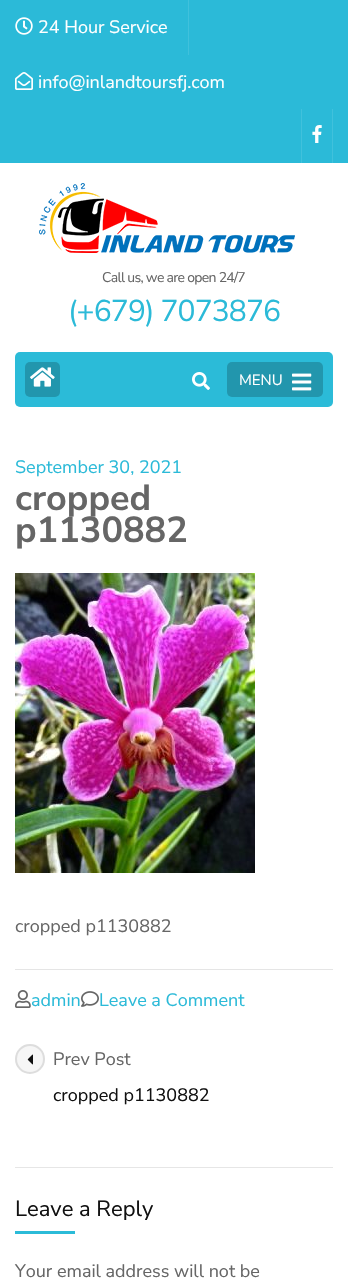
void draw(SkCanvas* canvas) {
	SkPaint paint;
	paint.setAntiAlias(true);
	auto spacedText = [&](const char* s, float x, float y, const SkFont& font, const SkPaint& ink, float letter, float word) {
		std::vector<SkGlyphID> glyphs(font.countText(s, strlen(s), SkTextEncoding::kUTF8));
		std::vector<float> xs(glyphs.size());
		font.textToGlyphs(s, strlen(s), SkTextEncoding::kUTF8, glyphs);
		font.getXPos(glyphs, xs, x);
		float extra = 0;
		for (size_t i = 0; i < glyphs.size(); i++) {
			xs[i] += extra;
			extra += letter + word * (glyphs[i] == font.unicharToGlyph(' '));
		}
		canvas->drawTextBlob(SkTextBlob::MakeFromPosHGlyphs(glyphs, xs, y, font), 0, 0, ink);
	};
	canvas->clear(0xffffffff);
	paint.setColor(0xff2bbad8);
	canvas->drawRect(SkRect::MakeXYWH(0, 0, 348, 163), paint);
	paint.setColor(0xff40c1dc);
	canvas->drawRect(SkRect::MakeXYWH(188, 0, 1, 55), paint);
	canvas->drawImageRect(SkImages::DeferredFromEncodedData(SkData::MakeFromFileName("img1.png")), SkRect::MakeXYWH(15, 17, 18, 18), SkSamplingOptions());
	SkFont f1(fontMgr->matchFamilyStyle("Nunito Sans", SkFontStyle::Normal()), 18);
	f1.setSubpixel(true);
	paint.setColor(0xffffffff);
	canvas->drawString("24 Hour Service", 38, 33, f1, paint);
	canvas->drawImageRect(SkImages::DeferredFromEncodedData(SkData::MakeFromFileName("img2.png")), SkRect::MakeXYWH(15, 72, 18, 18), SkSamplingOptions());
	canvas->drawString("info@inlandtoursfj.com", 38, 88, f1, paint);
	paint.setColor(0xff40c1dc);
	canvas->drawRect(SkRect::MakeXYWH(332, 109, 1, 54), paint);
	canvas->drawRect(SkRect::MakeXYWH(301, 109, 1, 54), paint);
	canvas->drawImageRect(SkImages::DeferredFromEncodedData(SkData::MakeFromFileName("img3.png")), SkRect::MakeXYWH(312, 125, 10, 18), SkSamplingOptions());
	canvas->drawImageRect(SkImages::DeferredFromEncodedData(SkData::MakeFromFileName("img4.png")), SkRect::MakeXYWH(39, 183, 256, 70), SkSamplingOptions());
	SkFont f2(fontMgr->matchFamilyStyle("Nunito Sans", SkFontStyle::Normal()), 14);
	f2.setSubpixel(true);
	paint.setColor(0xff666666);
	spacedText("Call us, we are open 24/7", 102, 282, f2, paint, -0.7, 0);
	SkFont f3(fontMgr->matchFamilyStyle("Nunito Sans", SkFontStyle::Normal()), 30);
	f3.setSubpixel(true);
	paint.setColor(0xff2bbad8);
	spacedText("(+679) 7073876", 68, 321, f3, paint, -0.9, 0);
	paint.setColor(0xff2bbbd8);
	canvas->drawRoundRect(SkRect::MakeXYWH(15, 352, 318, 55), 5, 5, paint);
	paint.setColor(0xff2296ad);
	canvas->drawRoundRect(SkRect::MakeXYWH(25, 362, 35, 35), 5, 5, paint);
	canvas->drawImageRect(SkImages::DeferredFromEncodedData(SkData::MakeFromFileName("img5.png")), SkRect::MakeXYWH(30, 367, 25, 20), SkSamplingOptions());
	canvas->drawImageRect(SkImages::DeferredFromEncodedData(SkData::MakeFromFileName("img6.png")), SkRect::MakeXYWH(192, 372, 18, 18), SkSamplingOptions());
	canvas->drawRoundRect(SkRect::MakeXYWH(227, 362, 96, 35), 5, 5, paint);
	SkFont f4(fontMgr->matchFamilyStyle("Nunito Sans", SkFontStyle::Normal()), 15);
	f4.setSubpixel(true);
	paint.setColor(0xffffffff);
	canvas->drawString("MENU", 239, 385, f4, paint);
	canvas->drawImageRect(SkImages::DeferredFromEncodedData(SkData::MakeFromFileName("img7.png")), SkRect::MakeXYWH(292, 373, 20, 18), SkSamplingOptions());
	paint.setColor(0xff2bbad8);
	canvas->drawString("September 30, 2021", 15, 473, f1, paint);
	SkFont f5(fontMgr->matchFamilyStyle("Nunito Sans", SkFontStyle::Bold()), 36);
	f5.setSubpixel(true);
	paint.setColor(0xff666666);
	canvas->drawString("cropped", 15, 510, f5, paint);
	canvas->drawString("p1130882", 15, 542, f5, paint);
	canvas->drawImageRect(SkImages::DeferredFromEncodedData(SkData::MakeFromFileName("img8.png")), SkRect::MakeXYWH(15, 573, 240, 300), SkSamplingOptions());
	canvas->drawString("cropped p1130882", 15, 932, f1, paint);
	paint.setColor(0xffe5e5e5);
	canvas->drawRect(SkRect::MakeXYWH(15, 969, 318, 1), paint);
	canvas->drawImageRect(SkImages::DeferredFromEncodedData(SkData::MakeFromFileName("img9.png")), SkRect::MakeXYWH(15, 990, 16, 18), SkSamplingOptions());
	paint.setColor(0xff2bbad8);
	canvas->drawString("admin", 31, 1006, f1, paint);
	canvas->drawImageRect(SkImages::DeferredFromEncodedData(SkData::MakeFromFileName("img10.png")), SkRect::MakeXYWH(81, 991, 18, 16), SkSamplingOptions());
	canvas->drawString("Leave a Comment", 99, 1006, f1, paint);
	paint.setColor(0xffe6e6e6);
	canvas->drawRect(SkRect::MakeXYWH(15, 1167, 318, 1), paint);
	paint.setColor(0xfff6f6f6);
	canvas->drawCircle(30, 1059, 15, paint);
	paint.setStroke(true);
	paint.setStrokeWidth(2);
	paint.setColor(0x1a000000);
	canvas->drawCircle(30, 1059, 14, paint);
	paint.setStroke(false);
	paint.setColor(0xff666666);
	canvas->drawString("Prev Post", 53, 1065, f1, paint);
	canvas->drawImageRect(SkImages::DeferredFromEncodedData(SkData::MakeFromFileName("img11.png")), SkRect::MakeXYWH(27, 1054, 6, 11), SkSamplingOptions());
	paint.setColor(0xff111111);
	canvas->drawString("cropped p1130882", 53, 1101, f1, paint);
	SkFont f6(fontMgr->matchFamilyStyle("Nunito Sans", SkFontStyle::Normal()), 22);
	f6.setSubpixel(true);
	canvas->drawString("Leave a Reply", 15, 1216, f6, paint);
	paint.setColor(0xff2bbbd8);
	canvas->drawRect(SkRect::MakeXYWH(15, 1231, 60, 3), paint);
	paint.setColor(0xff666666);
	canvas->drawString("Your email address will not be", 15, 1277, f1, paint);
}
